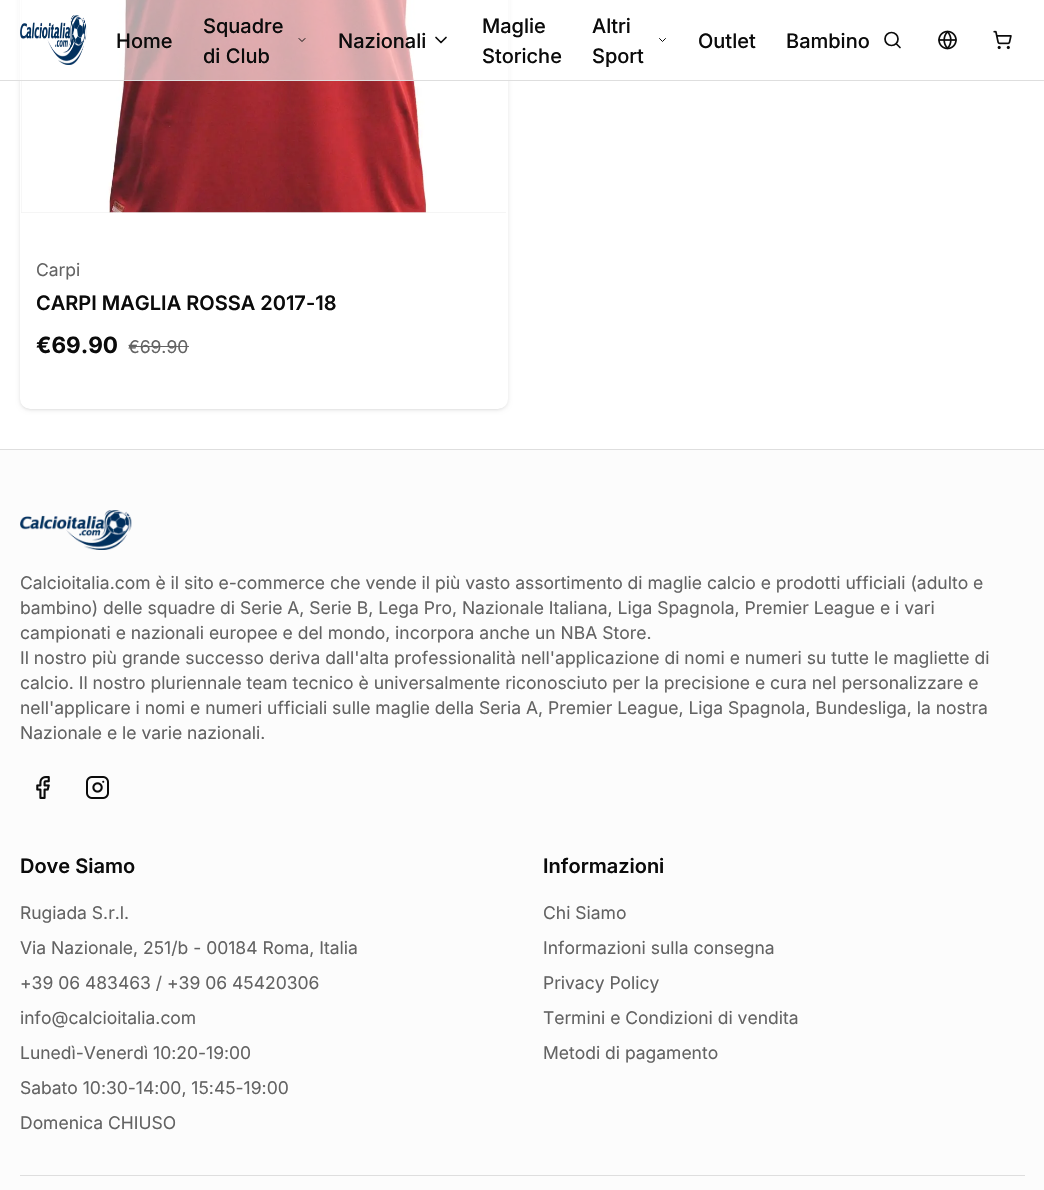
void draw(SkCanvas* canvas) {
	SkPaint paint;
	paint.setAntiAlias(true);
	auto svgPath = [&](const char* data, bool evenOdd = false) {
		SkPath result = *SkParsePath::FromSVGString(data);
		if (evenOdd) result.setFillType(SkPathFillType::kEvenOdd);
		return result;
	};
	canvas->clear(0xffffffff);
	paint.setColor(0x1a000000);
	paint.setMaskFilter(SkMaskFilter::MakeBlur(kNormal_SkBlurStyle, 1));
	canvas->drawRoundRect(SkRect::MakeXYWH(21, -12, 485, 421), 9, 9, paint);
	paint.setMaskFilter(nullptr);
	paint.setMaskFilter(SkMaskFilter::MakeBlur(kNormal_SkBlurStyle, 2));
	canvas->drawRoundRect(SkRect::MakeXYWH(20, -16, 488, 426), 10, 10, paint);
	paint.setMaskFilter(nullptr);
	paint.setColor(0xffffffff);
	canvas->drawRoundRect(SkRect::MakeXYWH(20, -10, 488, 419), 10, 10, paint);
	paint.setColor(0xfff2f2f2);
	canvas->drawRect(SkRect::MakeXYWH(21, 0, 485, 213), paint);
	canvas->drawImageRect(SkImages::DeferredFromEncodedData(SkData::MakeFromFileName("img4.png")), SkRect::MakeXYWH(21, 0, 485, 213), SkSamplingOptions());
	paint.setColor(0x99ffffff);
	canvas->drawRect(SkRect::MakeXYWH(18, 0, 492, 80), paint);
	paint.setColor(0xffdedede);
	canvas->drawRect(SkRect::MakeXYWH(0, 80, 1044, 1), paint);
	canvas->drawImageRect(SkImages::DeferredFromEncodedData(SkData::MakeFromFileName("img1.png")), SkRect::MakeXYWH(20, 15, 67, 50), SkSamplingOptions());
	SkFont f1(fontMgr->matchFamilyStyle("Inter", SkFontStyle(500, SkFontStyle::kNormal_Width, SkFontStyle::kUpright_Slant)), 20);
	f1.setSubpixel(true);
	paint.setColor(0xff0b0b0b);
	canvas->drawString("Home", 116, 48, f1, paint);
	canvas->drawString("Squadre", 203, 33, f1, paint);
	paint.setStroke(true);
	paint.setStrokeWidth(1);
	paint.setStrokeCap(SkPaint::kRound_Cap);
	paint.setStrokeJoin(SkPaint::kRound_Join);
	canvas->drawPath(svgPath("M299 38.5L302 41.5L305 38.5"), paint);
	paint.setStroke(false);
	canvas->drawString("di Club", 203, 63, f1, paint);
	canvas->drawString("Nazionali", 338, 48, f1, paint);
	paint.setStroke(true);
	paint.setStrokeWidth(1.7);
	canvas->drawPath(svgPath("M436 37.5L441 42.5L446 37.5"), paint);
	paint.setStroke(false);
	canvas->drawString("Maglie", 482, 33, f1, paint);
	canvas->drawString("Storiche", 482, 63, f1, paint);
	canvas->drawString("Altri", 592, 33, f1, paint);
	paint.setStroke(true);
	paint.setStrokeWidth(1);
	canvas->drawPath(svgPath("M659.5 38.5L662.5 41.5L665.5 38.5"), paint);
	paint.setStroke(false);
	canvas->drawString("Sport", 592, 63, f1, paint);
	canvas->drawString("Outlet", 698, 48, f1, paint);
	canvas->drawString("Bambino", 786, 48, f1, paint);
	paint.setStroke(true);
	paint.setStrokeWidth(1.7);
	paint.setStrokeCap(SkPaint::kButt_Cap);
	paint.setStrokeJoin(SkPaint::kMiter_Join);
	canvas->drawCircle(891.5, 39, 6.5, paint);
	paint.setStrokeCap(SkPaint::kRound_Cap);
	paint.setStrokeJoin(SkPaint::kRound_Join);
	canvas->drawPath(svgPath("M900 47.5L896.5 44"), paint);
	canvas->drawImageRect(SkImages::DeferredFromEncodedData(SkData::MakeFromFileName("img2.png")), SkRect::MakeXYWH(938, 30, 19, 20), SkSamplingOptions());
	canvas->drawImageRect(SkImages::DeferredFromEncodedData(SkData::MakeFromFileName("img3.png")), SkRect::MakeXYWH(993, 30, 19, 20), SkSamplingOptions());
	SkFont f2(fontMgr->matchFamilyStyle("Inter", SkFontStyle::Normal()), 17.5);
	f2.setSubpixel(true);
	paint.setStroke(false);
	paint.setColor(0xff636363);
	canvas->drawString("Carpi", 36, 276, f2, paint);
	SkFont f3(fontMgr->matchFamilyStyle("Inter", SkFontStyle(600, SkFontStyle::kNormal_Width, SkFontStyle::kUpright_Slant)), 20);
	f3.setSubpixel(true);
	paint.setColor(0xff0b0b0b);
	canvas->drawString("CARPI MAGLIA ROSSA 2017-18", 36, 310, f3, paint);
	SkFont f4(fontMgr->matchFamilyStyle("Inter", SkFontStyle::Bold()), 22.5);
	f4.setSubpixel(true);
	canvas->drawString("€69.90", 36, 353, f4, paint);
	paint.setColor(0xff636363);
	canvas->drawString("€69.90", 128, 353, f2, paint);
	canvas->drawRect(SkRect::MakeXYWH(129, 346, 60, 1), paint);
	paint.setColor(0xfffcfcfc);
	canvas->drawRect(SkRect::MakeXYWH(0, 450, 1044, 740), paint);
	paint.setColor(0xffdedede);
	canvas->drawRect(SkRect::MakeXYWH(0, 449, 1044, 1), paint);
	canvas->drawImageRect(SkImages::DeferredFromEncodedData(SkData::MakeFromFileName("img5.png")), SkRect::MakeXYWH(20, 510, 112, 40), SkSamplingOptions());
	paint.setColor(0xff636363);
	canvas->drawString("Calcioitalia.com è il sito e-commerce che vende il più vasto assortimento di maglie calcio e prodotti ufficiali (adulto e", 20, 589, f2, paint);
	canvas->drawString("bambino) delle squadre di Serie A, Serie B, Lega Pro, Nazionale Italiana, Liga Spagnola, Premier League e i vari", 20, 614, f2, paint);
	canvas->drawString("campionati e nazionali europee e del mondo, incorpora anche un NBA Store.", 20, 639, f2, paint);
	canvas->drawString("Il nostro più grande successo deriva dall'alta professionalità nell'applicazione di nomi e numeri su tutte le magliette di", 20, 664, f2, paint);
	canvas->drawString("calcio. Il nostro pluriennale team tecnico è universalmente riconosciuto per la precisione e cura nel personalizzare e", 20, 689, f2, paint);
	canvas->drawString("nell'applicare i nomi e numeri ufficiali sulle maglie della Seria A, Premier League, Liga Spagnola, Bundesliga, la nostra", 20, 714, f2, paint);
	canvas->drawString("Nazionale e le varie nazionali.", 20, 739, f2, paint);
	canvas->drawImageRect(SkImages::DeferredFromEncodedData(SkData::MakeFromFileName("img6.png")), SkRect::MakeXYWH(36, 776, 14, 23), SkSamplingOptions());
	canvas->drawImageRect(SkImages::DeferredFromEncodedData(SkData::MakeFromFileName("img7.png")), SkRect::MakeXYWH(86, 776, 23, 23), SkSamplingOptions());
	paint.setColor(0xff0b0b0b);
	canvas->drawString("Dove Siamo", 20, 873, f3, paint);
	paint.setColor(0xff636363);
	canvas->drawString("Rugiada S.r.l.", 20, 919, f2, paint);
	canvas->drawString("Via Nazionale, 251/b - 00184 Roma, Italia", 20, 954, f2, paint);
	canvas->drawString("+39 06 483463 / +39 06 45420306", 20, 989, f2, paint);
	canvas->drawString("info@calcioitalia.com", 20, 1024, f2, paint);
	canvas->drawString("Lunedì-Venerdì 10:20-19:00", 20, 1059, f2, paint);
	canvas->drawString("Sabato 10:30-14:00, 15:45-19:00", 20, 1094, f2, paint);
	canvas->drawString("Domenica CHIUSO", 20, 1129, f2, paint);
	paint.setColor(0xff0b0b0b);
	canvas->drawString("Informazioni", 543, 873, f3, paint);
	paint.setColor(0xff636363);
	canvas->drawString("Chi Siamo", 543, 919, f2, paint);
	canvas->drawString("Informazioni sulla consegna", 543, 954, f2, paint);
	canvas->drawString("Privacy Policy", 543, 989, f2, paint);
	canvas->drawString("Termini e Condizioni di vendita", 543, 1024, f2, paint);
	canvas->drawString("Metodi di pagamento", 543, 1059, f2, paint);
	paint.setColor(0xffdedede);
	canvas->drawRect(SkRect::MakeXYWH(20, 1175, 1005, 1), paint);
}
